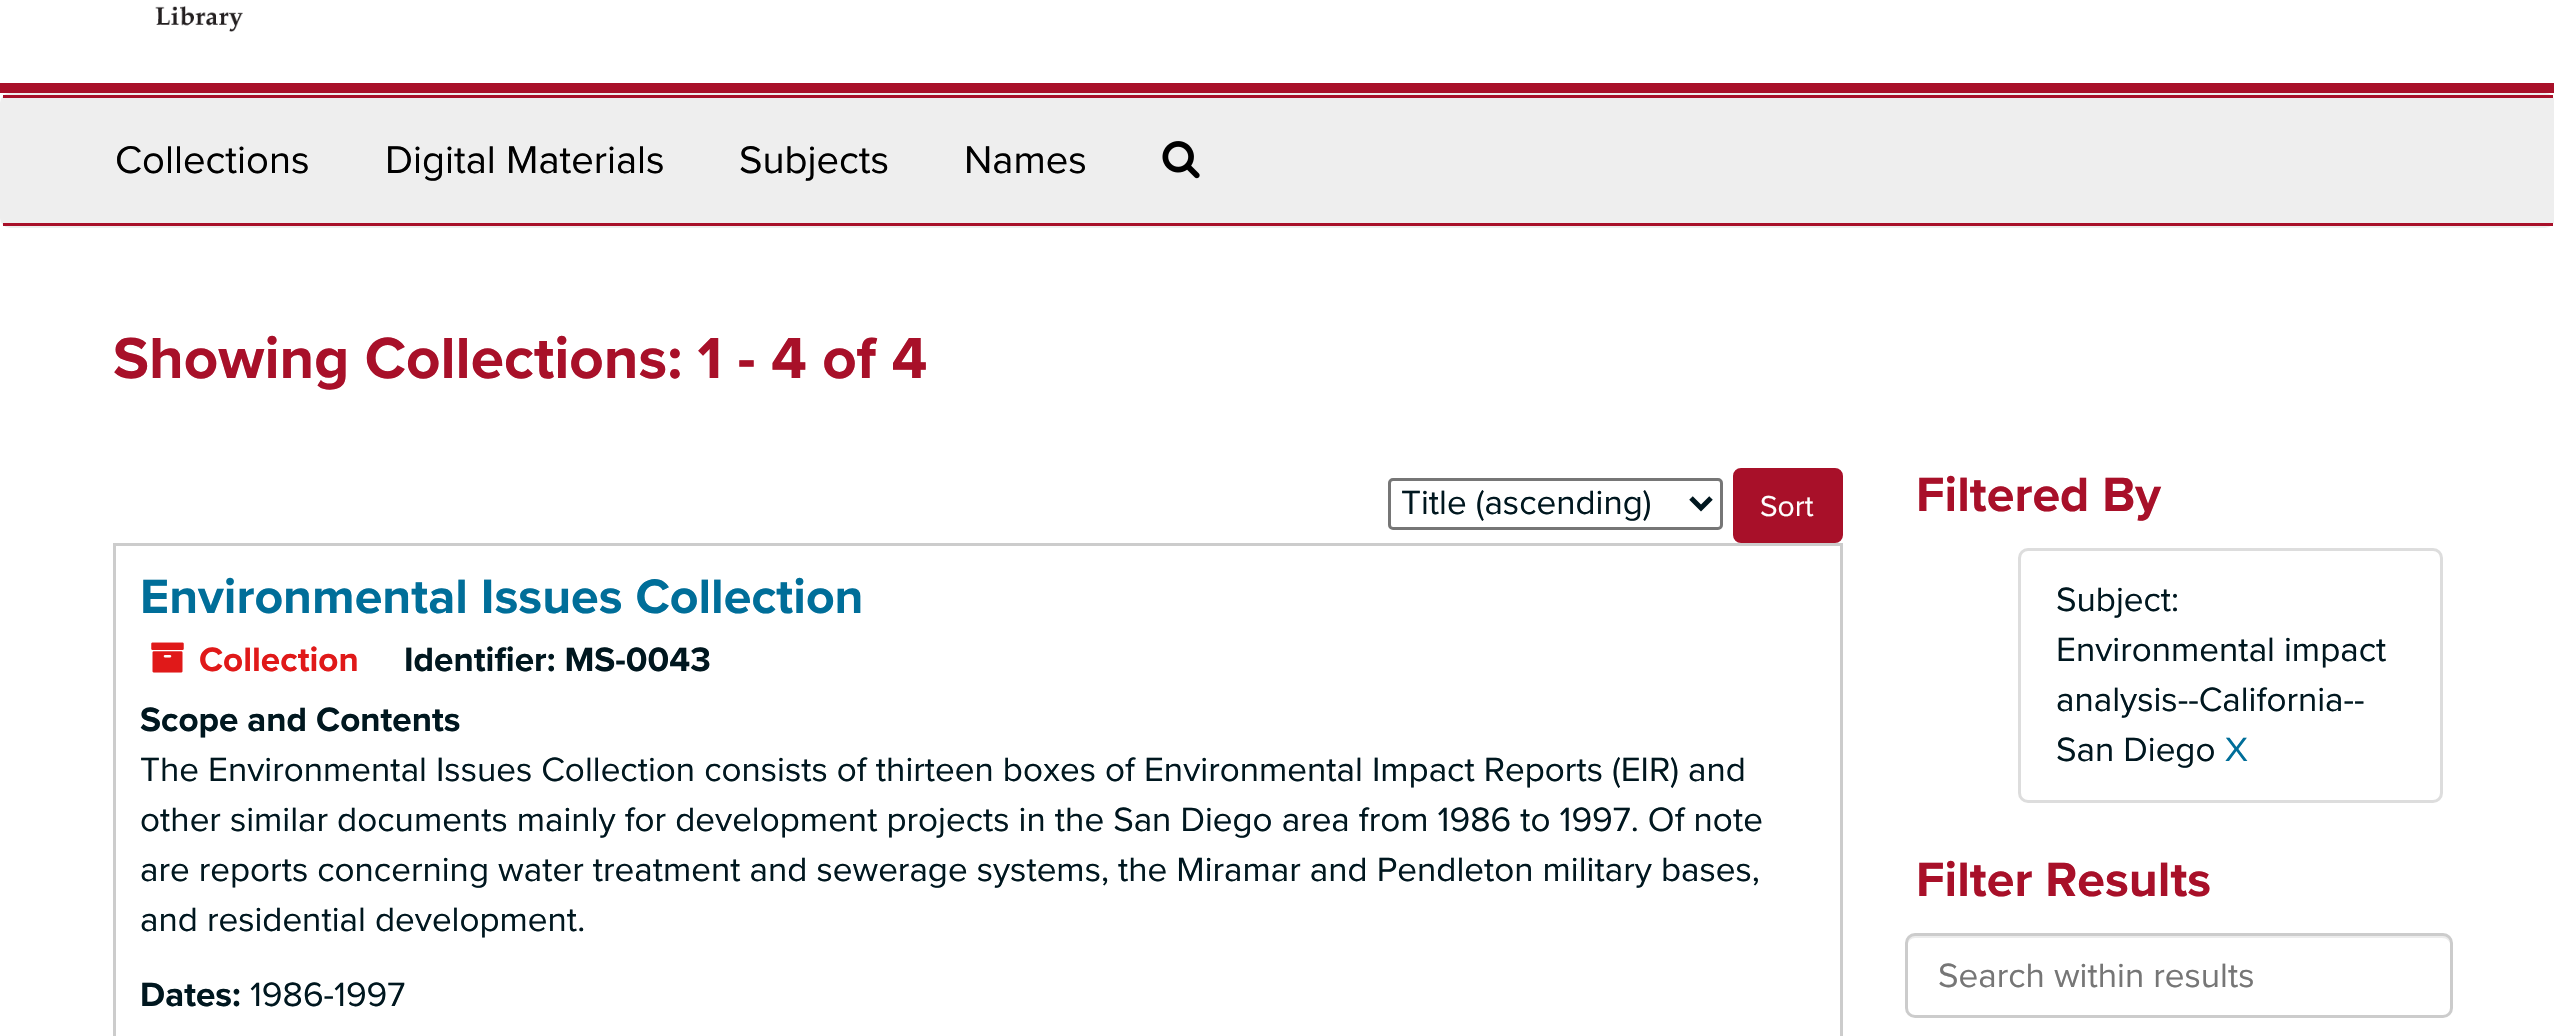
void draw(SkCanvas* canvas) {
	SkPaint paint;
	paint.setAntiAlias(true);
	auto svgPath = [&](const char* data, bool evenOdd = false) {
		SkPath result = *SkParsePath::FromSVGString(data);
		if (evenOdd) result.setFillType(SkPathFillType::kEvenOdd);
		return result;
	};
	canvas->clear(0xffffffff);
	paint.setColor(0xffa81029);
	canvas->drawRect(SkRect::MakeXYWH(0, 83, 2554, 10), paint);
	canvas->drawImageRect(SkImages::DeferredFromEncodedData(SkData::MakeFromFileName("img1.png")), SkRect::MakeXYWH(155, 6, 88, 26), SkSamplingOptions());
	paint.setStroke(true);
	paint.setStrokeWidth(3);
	paint.setColor(0xffeeeeee);
	canvas->drawRoundRect(SkRect::MakeXYWH(1.5, 94.5, 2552, 132), 8.5, 8.5, paint);
	paint.setStroke(false);
	canvas->drawRect(SkRect::MakeXYWH(3, 98, 2549, 125), paint);
	paint.setColor(0xffa81029);
	canvas->drawRect(SkRect::MakeXYWH(3, 95, 2550, 3), paint);
	canvas->drawRect(SkRect::MakeXYWH(3, 223, 2550, 3), paint);
	SkFont f1(fontMgr->matchFamilyStyle("Proxima Nova", SkFontStyle::Normal()), 40);
	f1.setSubpixel(true);
	paint.setColor(0xff000000);
	canvas->drawString("Collections", 115, 173, f1, paint);
	canvas->drawString("Digital Materials", 385, 173, f1, paint);
	canvas->drawString("Subjects", 739, 173, f1, paint);
	canvas->drawString("Names", 964, 173, f1, paint);
	canvas->drawImageRect(SkImages::DeferredFromEncodedData(SkData::MakeFromFileName("img2.png")), SkRect::MakeXYWH(1162, 141, 38, 38), SkSamplingOptions());
	SkFont f2(fontMgr->matchFamilyStyle("Proxima Nova", SkFontStyle::Bold()), 60);
	f2.setSubpixel(true);
	paint.setColor(0xffa81029);
	canvas->drawString("Showing Collections: 1 - 4 of 4", 113, 378, f2, paint);
	paint.setStroke(true);
	paint.setColor(0xff767676);
	canvas->drawRoundRect(SkRect::MakeXYWH(1389.5, 479.5, 332, 49), 3.5, 3.5, paint);
	paint.setStrokeWidth(5);
	paint.setColor(0xff00171f);
	canvas->drawPath(svgPath("M1691 498L1701 508L1711 498"), paint);
	SkFont f3(fontMgr->matchFamilyStyle("Proxima Nova", SkFontStyle::Normal()), 35);
	f3.setSubpixel(true);
	paint.setStroke(false);
	canvas->drawString("Title (ascending)", 1401, 514, f3, paint);
	paint.setColor(0xffa81029);
	canvas->drawRoundRect(SkRect::MakeXYWH(1734.5, 469.5, 107, 72), 6.5, 6.5, paint);
	paint.setStroke(true);
	paint.setStrokeWidth(3);
	canvas->drawRoundRect(SkRect::MakeXYWH(1734.5, 469.5, 107, 72), 6.5, 6.5, paint);
	SkFont f4(fontMgr->matchFamilyStyle("Proxima Nova", SkFontStyle::Normal()), 30);
	f4.setSubpixel(true);
	paint.setStroke(false);
	paint.setColor(0xffffffff);
	canvas->drawString("Sort", 1760, 516, f4, paint);
	paint.setStroke(true);
	paint.setColor(0xffcccccc);
	canvas->drawRect(SkRect::MakeXYWH(114.5, 544.5, 1727, 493), paint);
	SkFont f5(fontMgr->matchFamilyStyle("Proxima Nova", SkFontStyle::Bold()), 50);
	f5.setSubpixel(true);
	paint.setStroke(false);
	paint.setColor(0xff006e99);
	canvas->drawString("Environmental Issues Collection", 140, 613, f5, paint);
	canvas->drawImageRect(SkImages::DeferredFromEncodedData(SkData::MakeFromFileName("img3.png")), SkRect::MakeXYWH(151, 642, 33, 31), SkSamplingOptions());
	SkFont f6(fontMgr->matchFamilyStyle("Proxima Nova", SkFontStyle::Bold()), 35);
	f6.setSubpixel(true);
	paint.setColor(0xffe01919);
	canvas->drawString("Collection", 199, 671, f6, paint);
	paint.setColor(0xff00171f);
	canvas->drawString("Identifier: MS-0043", 404, 671, f6, paint);
	canvas->drawString("Scope and Contents", 140, 731, f6, paint);
	canvas->drawString("The Environmental Issues Collection consists of thirteen boxes of Environmental Impact Reports (EIR) and", 140, 781, f3, paint);
	canvas->drawString("other similar documents mainly for development projects in the San Diego area from 1986 to 1997. Of note", 140, 831, f3, paint);
	canvas->drawString("are reports concerning water treatment and sewerage systems, the Miramar and Pendleton military bases,", 140, 881, f3, paint);
	canvas->drawString("and residential development.", 140, 931, f3, paint);
	canvas->drawString("Dates:", 140, 1006, f6, paint);
	canvas->drawString("1986-1997", 250, 1006, f3, paint);
	paint.setColor(0xffa81029);
	canvas->drawString("Filtered By", 1916, 511, f5, paint);
	paint.setStroke(true);
	paint.setColor(0xffdddddd);
	canvas->drawRoundRect(SkRect::MakeXYWH(2019.5, 549.5, 422, 252), 8.5, 8.5, paint);
	paint.setStroke(false);
	paint.setColor(0xff00171f);
	canvas->drawString("Subject:", 2056, 611, f3, paint);
	canvas->drawString("Environmental impact", 2056, 661, f3, paint);
	canvas->drawString("analysis--California--", 2056, 711, f3, paint);
	canvas->drawString("San Diego", 2056, 761, f3, paint);
	paint.setColor(0xff006e99);
	canvas->drawString("X", 2225, 761, f3, paint);
	paint.setColor(0xffa81029);
	canvas->drawString("Filter Results", 1916, 896, f5, paint);
	paint.setColor(0xffececec);
	canvas->drawPath(svgPath("M1915 938H2442C2447 938 2450 941 2450 945C2450 940 2448 935 2442 935H1916C1910 935 1908 940 1908 945C1908 941 1911 938 1915 938Z"), paint);
	paint.setStroke(true);
	paint.setColor(0xffcccccc);
	canvas->drawRoundRect(SkRect::MakeXYWH(1906.5, 934.5, 545, 82), 8.5, 8.5, paint);
	paint.setStroke(false);
	paint.setColor(0xff767676);
	canvas->drawString("Search within results", 1938, 987, f3, paint);
}
